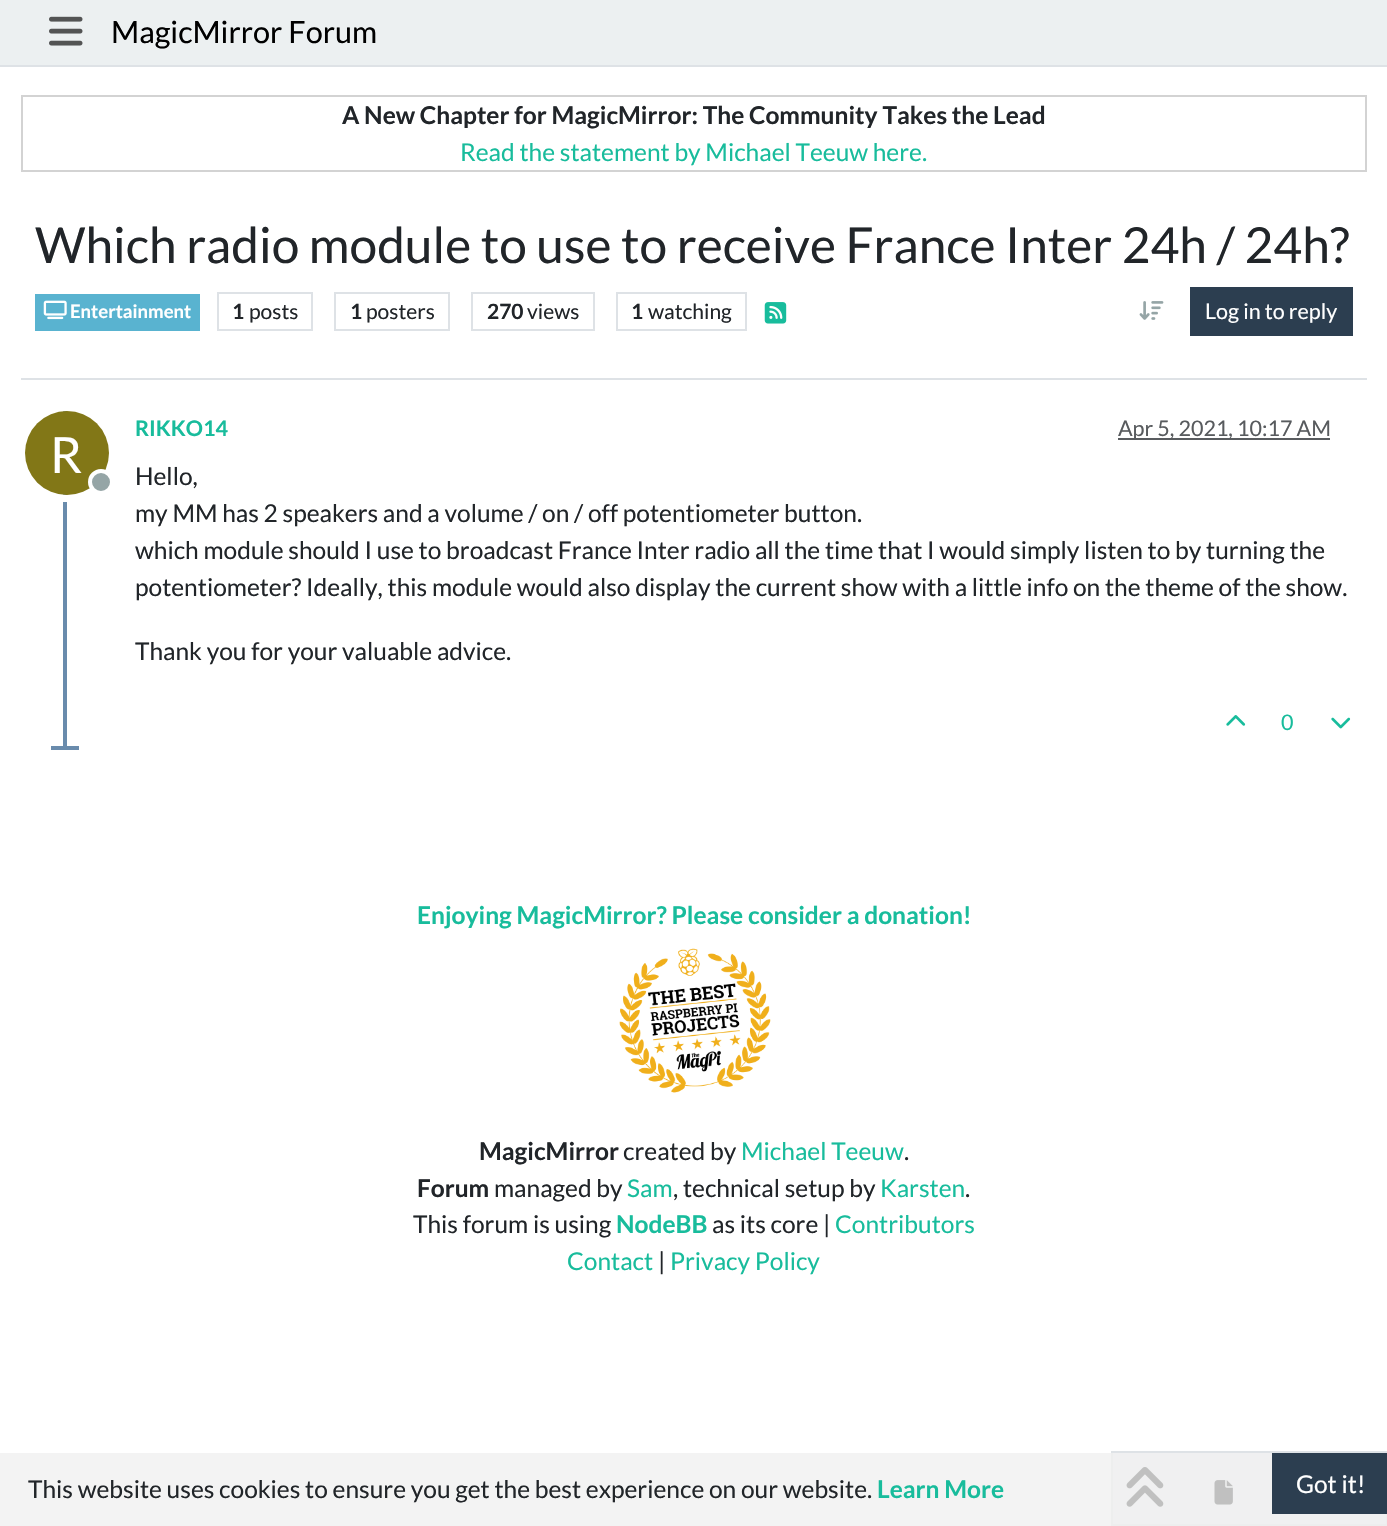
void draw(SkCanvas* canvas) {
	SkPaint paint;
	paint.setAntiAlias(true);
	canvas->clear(0xffffffff);
	paint.setColor(0xffecf0f1);
	canvas->drawRect(SkRect::MakeXYWH(0, 0, 1387, 65), paint);
	paint.setColor(0xffdee2e6);
	canvas->drawRect(SkRect::MakeXYWH(0, 65, 1387, 2), paint);
	canvas->drawImageRect(SkImages::DeferredFromEncodedData(SkData::MakeFromFileName("img1.png")), SkRect::MakeXYWH(49, 16, 34, 30), SkSamplingOptions());
	SkFont f1(fontMgr->matchFamilyStyle("Lato", SkFontStyle::Normal()), 30.6);
	f1.setSubpixel(true);
	paint.setColor(0xff000000);
	canvas->drawString("MagicMirror Forum", 111, 43, f1, paint);
	paint.setStroke(true);
	paint.setStrokeWidth(2);
	paint.setColor(0xffd3d3d3);
	canvas->drawRect(SkRect::MakeXYWH(22, 96, 1344, 75), paint);
	SkFont f2(fontMgr->matchFamilyStyle("Lato", SkFontStyle::Bold()), 24.5);
	f2.setSubpixel(true);
	paint.setStroke(false);
	paint.setColor(0xff212529);
	canvas->drawString("A New Chapter for MagicMirror: The Community Takes the Lead", 342, 124, f2, paint);
	SkFont f3(fontMgr->matchFamilyStyle("Lato", SkFontStyle::Normal()), 24.5);
	f3.setSubpixel(true);
	paint.setColor(0xff18bc9c);
	canvas->drawString("Read the statement by Michael Teeuw here.", 460, 161, f3, paint);
	paint.setColor(0xffdee2e6);
	canvas->drawRect(SkRect::MakeXYWH(21, 378, 1346, 2), paint);
	SkFont f4(fontMgr->matchFamilyStyle("Lato", SkFontStyle::Normal()), 49.6);
	f4.setSubpixel(true);
	paint.setColor(0xff212529);
	canvas->drawString("Which radio module to use to receive France Inter 24h / 24h?", 35, 263, f4, paint);
	paint.setColor(0xff59b3d0);
	canvas->drawRect(SkRect::MakeXYWH(35, 294, 165, 37), paint);
	canvas->drawImageRect(SkImages::DeferredFromEncodedData(SkData::MakeFromFileName("img2.png")), SkRect::MakeXYWH(43, 300, 24, 20), SkSamplingOptions());
	SkFont f5(fontMgr->matchFamilyStyle("Lato", SkFontStyle::Bold()), 18.5);
	f5.setSubpixel(true);
	paint.setColor(0xffffffff);
	canvas->drawString("Entertainment", 70, 318, f5, paint);
	paint.setStroke(true);
	paint.setColor(0xffdee2e6);
	canvas->drawRect(SkRect::MakeXYWH(218, 293, 94, 37), paint);
	SkFont f6(fontMgr->matchFamilyStyle("Lato", SkFontStyle::Bold()), 21);
	f6.setSubpixel(true);
	paint.setStroke(false);
	paint.setColor(0xff212529);
	canvas->drawString("1", 232, 319, f6, paint);
	SkFont f7(fontMgr->matchFamilyStyle("Lato", SkFontStyle::Normal()), 21);
	f7.setSubpixel(true);
	canvas->drawString("posts", 249, 319, f7, paint);
	paint.setStroke(true);
	paint.setColor(0xffdee2e6);
	canvas->drawRect(SkRect::MakeXYWH(335, 293, 114, 37), paint);
	paint.setStroke(false);
	paint.setColor(0xff212529);
	canvas->drawString("1", 350, 319, f6, paint);
	canvas->drawString("posters", 366, 319, f7, paint);
	paint.setStroke(true);
	paint.setColor(0xffdee2e6);
	canvas->drawRect(SkRect::MakeXYWH(472, 293, 122, 37), paint);
	paint.setStroke(false);
	paint.setColor(0xff212529);
	canvas->drawString("270", 487, 319, f6, paint);
	canvas->drawString("views", 527, 319, f7, paint);
	paint.setStroke(true);
	paint.setColor(0xffdee2e6);
	canvas->drawRect(SkRect::MakeXYWH(617, 293, 129, 37), paint);
	paint.setStroke(false);
	paint.setColor(0xff212529);
	canvas->drawString("1", 631, 319, f6, paint);
	canvas->drawString("watching", 648, 319, f7, paint);
	canvas->drawImageRect(SkImages::DeferredFromEncodedData(SkData::MakeFromFileName("img3.png")), SkRect::MakeXYWH(764, 302, 23, 22), SkSamplingOptions());
	canvas->drawImageRect(SkImages::DeferredFromEncodedData(SkData::MakeFromFileName("img4.png")), SkRect::MakeXYWH(1139, 301, 25, 19), SkSamplingOptions());
	paint.setColor(0xff2c3e50);
	canvas->drawRect(SkRect::MakeXYWH(1190, 287, 163, 49), paint);
	SkFont f8(fontMgr->matchFamilyStyle("Lato", SkFontStyle::Normal()), 21.5);
	f8.setSubpixel(true);
	paint.setColor(0xffffffff);
	canvas->drawString("Log in to reply", 1205, 319, f8, paint);
	paint.setColor(0xff698bac);
	canvas->drawRect(SkRect::MakeXYWH(63, 408, 4, 341), paint);
	SkFont f9(fontMgr->matchFamilyStyle("Lato", SkFontStyle::Bold()), 21.5);
	f9.setSubpixel(true);
	paint.setColor(0xff18bc9c);
	canvas->drawString("RIKKO14", 135, 436, f9, paint);
	paint.setColor(0xff595c5f);
	canvas->drawRect(SkRect::MakeXYWH(1118, 438, 212, 2), paint);
	paint.setColor(0xff585b5e);
	canvas->drawString("Apr 5, 2021, 10:17 AM", 1118, 436, f8, paint);
	paint.setStroke(true);
	paint.setStrokeWidth(7);
	paint.setColor(0xffffffff);
	canvas->drawCircle(67, 453, 45.5, paint);
	paint.setStroke(false);
	paint.setColor(0xff827717);
	canvas->drawCircle(67, 453, 42, paint);
	SkFont f10(fontMgr->matchFamilyStyle("Lato", SkFontStyle::Normal()), 50);
	f10.setSubpixel(true);
	paint.setColor(0xffffffff);
	canvas->drawString("R", 50, 473, f10, paint);
	paint.setColor(0xff95a5a6);
	canvas->drawCircle(101, 482, 11, paint);
	paint.setStroke(true);
	paint.setStrokeWidth(4);
	paint.setColor(0xffffffff);
	canvas->drawCircle(101, 482, 11, paint);
	paint.setStroke(false);
	paint.setColor(0xff212529);
	canvas->drawString("Hello,", 135, 485, f3, paint);
	canvas->drawString("my MM has 2 speakers and a volume / on / off potentiometer button.", 135, 522, f3, paint);
	canvas->drawString("which module should I use to broadcast France Inter radio all the time that I would simply listen to by turning the", 135, 559, f3, paint);
	canvas->drawString("potentiometer? Ideally, this module would also display the current show with a little info on the theme of the show.", 135, 596, f3, paint);
	canvas->drawString("Thank you for your valuable advice.", 135, 660, f3, paint);
	canvas->drawImageRect(SkImages::DeferredFromEncodedData(SkData::MakeFromFileName("img5.png")), SkRect::MakeXYWH(1226, 715, 20, 11), SkSamplingOptions());
	paint.setColor(0xff18bc9c);
	canvas->drawString("0", 1281, 730, f8, paint);
	canvas->drawImageRect(SkImages::DeferredFromEncodedData(SkData::MakeFromFileName("img6.png")), SkRect::MakeXYWH(1331, 717, 20, 12), SkSamplingOptions());
	paint.setColor(0xff698bac);
	canvas->drawRect(SkRect::MakeXYWH(51, 746, 28, 4), paint);
	paint.setColor(0xffecf0f1);
	canvas->drawRect(SkRect::MakeXYWH(1112, 1452, 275, 73), paint);
	paint.setStroke(true);
	paint.setStrokeWidth(2);
	paint.setColor(0xffdee2e6);
	canvas->drawRect(SkRect::MakeXYWH(1112, 1452, 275, 73), paint);
	canvas->drawImageRect(SkImages::DeferredFromEncodedData(SkData::MakeFromFileName("img7.png")), SkRect::MakeXYWH(1126, 1467, 38, 40), SkSamplingOptions());
	canvas->drawImageRect(SkImages::DeferredFromEncodedData(SkData::MakeFromFileName("img8.png")), SkRect::MakeXYWH(1214, 1480, 19, 25), SkSamplingOptions());
	paint.setStroke(false);
	paint.setColor(0xff18bc9c);
	canvas->drawString("Enjoying MagicMirror? Please consider a donation!", 417, 924, f2, paint);
	canvas->drawImageRect(SkImages::DeferredFromEncodedData(SkData::MakeFromFileName("img9.png")), SkRect::MakeXYWH(619, 948, 152, 145), SkSamplingOptions());
	paint.setColor(0xff212529);
	canvas->drawString("MagicMirror", 479, 1160, f2, paint);
	canvas->drawString("created by", 623, 1160, f3, paint);
	paint.setColor(0xff18bc9c);
	canvas->drawString("Michael Teeuw", 741, 1160, f3, paint);
	paint.setColor(0xff212529);
	canvas->drawString(".", 904, 1160, f3, paint);
	canvas->drawString("Forum", 417, 1197, f2, paint);
	canvas->drawString("managed by", 494, 1197, f3, paint);
	paint.setColor(0xff18bc9c);
	canvas->drawString("Sam", 627, 1197, f3, paint);
	paint.setColor(0xff212529);
	canvas->drawString(", technical setup by", 673, 1197, f3, paint);
	paint.setColor(0xff18bc9c);
	canvas->drawString("Karsten", 880, 1197, f3, paint);
	paint.setColor(0xff212529);
	canvas->drawString(".", 965, 1197, f3, paint);
	canvas->drawString("This forum is using", 413, 1233, f3, paint);
	paint.setColor(0xff18bc9c);
	canvas->drawString("NodeBB", 616, 1233, f2, paint);
	paint.setColor(0xff212529);
	canvas->drawString("as its core |", 712, 1233, f3, paint);
	paint.setColor(0xff18bc9c);
	canvas->drawString("Contributors", 835, 1233, f3, paint);
	canvas->drawString("Contact", 567, 1270, f3, paint);
	paint.setColor(0xff212529);
	canvas->drawString("|", 658, 1270, f3, paint);
	paint.setColor(0xff18bc9c);
	canvas->drawString("Privacy Policy", 670, 1270, f3, paint);
	paint.setColor(0xccf0f0f0);
	canvas->drawRect(SkRect::MakeXYWH(0, 1453, 1387, 73), paint);
	paint.setColor(0xff212529);
	canvas->drawString("This website uses cookies to ensure you get the best experience on our website.", 28, 1498, f3, paint);
	paint.setColor(0xff18bc9c);
	canvas->drawString("Learn More", 877, 1498, f2, paint);
	paint.setColor(0xff2c3e50);
	canvas->drawRect(SkRect::MakeXYWH(1272, 1453, 115, 61), paint);
	paint.setColor(0xffffffff);
	canvas->drawString("Got it!", 1296, 1493, f3, paint);
}
